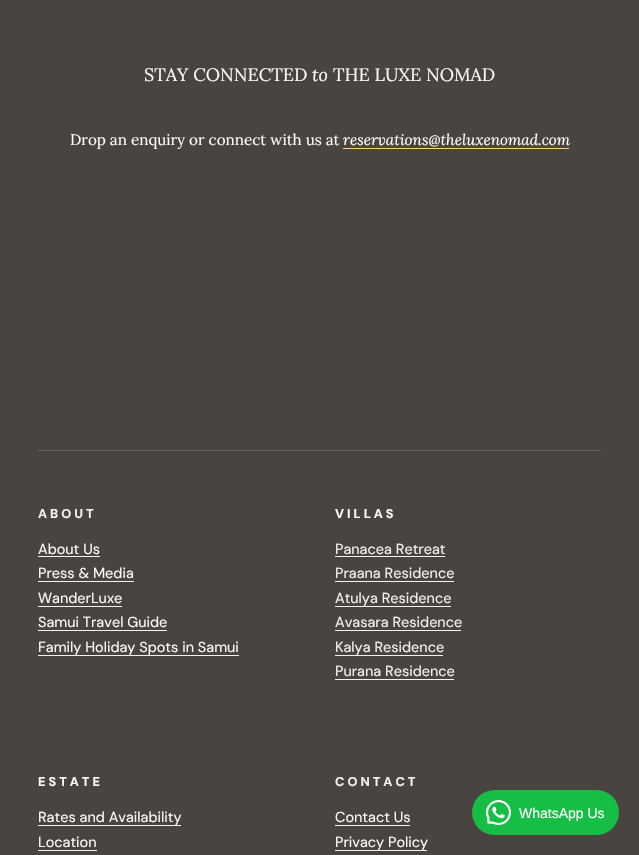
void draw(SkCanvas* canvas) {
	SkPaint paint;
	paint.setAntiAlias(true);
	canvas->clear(0xff4a4441);
	SkFont f1(fontMgr->matchFamilyStyle("Lora", SkFontStyle::Normal()), 18);
	f1.setSubpixel(true);
	paint.setColor(0xfffdfaf7);
	canvas->drawString("STAY CONNECTED", 144, 81, f1, paint);
	SkFont f2(fontMgr->matchFamilyStyle("Lora", SkFontStyle::Italic()), 18);
	f2.setSubpixel(true);
	canvas->drawString("to", 312, 81, f2, paint);
	canvas->drawString("THE LUXE NOMAD", 333, 81, f1, paint);
	SkFont f3(fontMgr->matchFamilyStyle("Lora", SkFontStyle::Normal()), 15.2);
	f3.setSubpixel(true);
	canvas->drawString("Drop an enquiry or connect with us at", 70, 145, f3, paint);
	SkFont f4(fontMgr->matchFamilyStyle("Lora", SkFontStyle::Italic()), 15.2);
	f4.setSubpixel(true);
	canvas->drawString("reservations@theluxenomad.com", 343, 145, f4, paint);
	paint.setColor(0xffffd075);
	canvas->drawRect(SkRect::MakeXYWH(343, 148, 226, 1), paint);
	paint.setColor(0xff696360);
	canvas->drawRect(SkRect::MakeXYWH(38, 450, 563, 1), paint);
	SkFont f5(fontMgr->matchFamilyStyle("DM Sans", SkFontStyle::Bold()), 12.75);
	f5.setSubpixel(true);
	paint.setColor(0xfff5f2ee);
	canvas->drawString("A B O U T", 38, 518, f5, paint);
	paint.setColor(0xfffdfaf7);
	canvas->drawString("V I L L A S", 335, 518, f5, paint);
	SkFont f6(fontMgr->matchFamilyStyle("DM Sans", SkFontStyle::Normal()), 14.5);
	f6.setSubpixel(true);
	canvas->drawString("About Us", 38, 554, f6, paint);
	paint.setColor(0xfff5f2ee);
	canvas->drawRect(SkRect::MakeXYWH(38, 556, 62, 1), paint);
	paint.setColor(0xfffdfaf7);
	canvas->drawString("Press & Media", 38, 578, f6, paint);
	paint.setColor(0xfff5f2ee);
	canvas->drawRect(SkRect::MakeXYWH(38, 581, 96, 1), paint);
	paint.setColor(0xfffdfaf7);
	canvas->drawString("WanderLuxe", 38, 603, f6, paint);
	paint.setColor(0xfff5f2ee);
	canvas->drawRect(SkRect::MakeXYWH(38, 606, 84, 1), paint);
	paint.setColor(0xfffdfaf7);
	canvas->drawString("Samui Travel Guide", 38, 627, f6, paint);
	paint.setColor(0xfff5f2ee);
	canvas->drawRect(SkRect::MakeXYWH(38, 630, 129, 1), paint);
	canvas->drawRect(SkRect::MakeXYWH(38, 655, 201, 1), paint);
	paint.setColor(0xfffdfaf7);
	canvas->drawString("Family Holiday Spots in Samui", 38, 652, f6, paint);
	paint.setColor(0xfff5f2ee);
	canvas->drawString("Panacea Retreat", 335, 554, f6, paint);
	canvas->drawRect(SkRect::MakeXYWH(335, 556, 110, 1), paint);
	canvas->drawString("Praana Residence", 335, 578, f6, paint);
	canvas->drawRect(SkRect::MakeXYWH(335, 581, 119, 1), paint);
	canvas->drawRect(SkRect::MakeXYWH(335, 606, 116, 1), paint);
	canvas->drawString("Atulya Residence", 335, 603, f6, paint);
	canvas->drawString("Avasara Residence", 335, 627, f6, paint);
	canvas->drawRect(SkRect::MakeXYWH(335, 630, 126, 1), paint);
	canvas->drawRect(SkRect::MakeXYWH(335, 655, 108, 1), paint);
	canvas->drawString("Kalya Residence", 335, 652, f6, paint);
	canvas->drawString("Purana Residence", 335, 676, f6, paint);
	canvas->drawRect(SkRect::MakeXYWH(335, 679, 119, 1), paint);
	paint.setColor(0xfffdfaf7);
	canvas->drawString("E S T A T E", 38, 786, f5, paint);
	paint.setColor(0xfff5f2ee);
	canvas->drawString("C O N T A C T", 335, 786, f5, paint);
	canvas->drawRect(SkRect::MakeXYWH(38, 825, 143, 1), paint);
	paint.setColor(0xfffdfaf7);
	canvas->drawString("Rates and Availability", 38, 822, f6, paint);
	canvas->drawString("Location", 38, 847, f6, paint);
	paint.setColor(0xfff5f2ee);
	canvas->drawRect(SkRect::MakeXYWH(38, 850, 59, 1), paint);
	paint.setColor(0xfffdfaf7);
	canvas->drawString("Contact Us", 335, 822, f6, paint);
	paint.setColor(0xfff5f2ee);
	canvas->drawRect(SkRect::MakeXYWH(335, 825, 75, 1), paint);
	canvas->drawRect(SkRect::MakeXYWH(335, 850, 92, 1), paint);
	paint.setColor(0xfffdfaf7);
	canvas->drawString("Privacy Policy", 335, 847, f6, paint);
	paint.setColor(0xff16be45);
	canvas->drawRoundRect(SkRect::MakeXYWH(472, 790, 147, 45), 22.5, 22.5, paint);
	canvas->drawImageRect(SkImages::DeferredFromEncodedData(SkData::MakeFromFileName("img1.png")), SkRect::MakeXYWH(486, 800, 25, 25), SkSamplingOptions());
	SkFont f7(fontMgr->matchFamilyStyle("Liberation Sans", SkFontStyle::Normal()), 14);
	f7.setSubpixel(true);
	paint.setColor(0xffffffff);
	canvas->drawString("WhatsApp Us", 519, 818, f7, paint);
}
